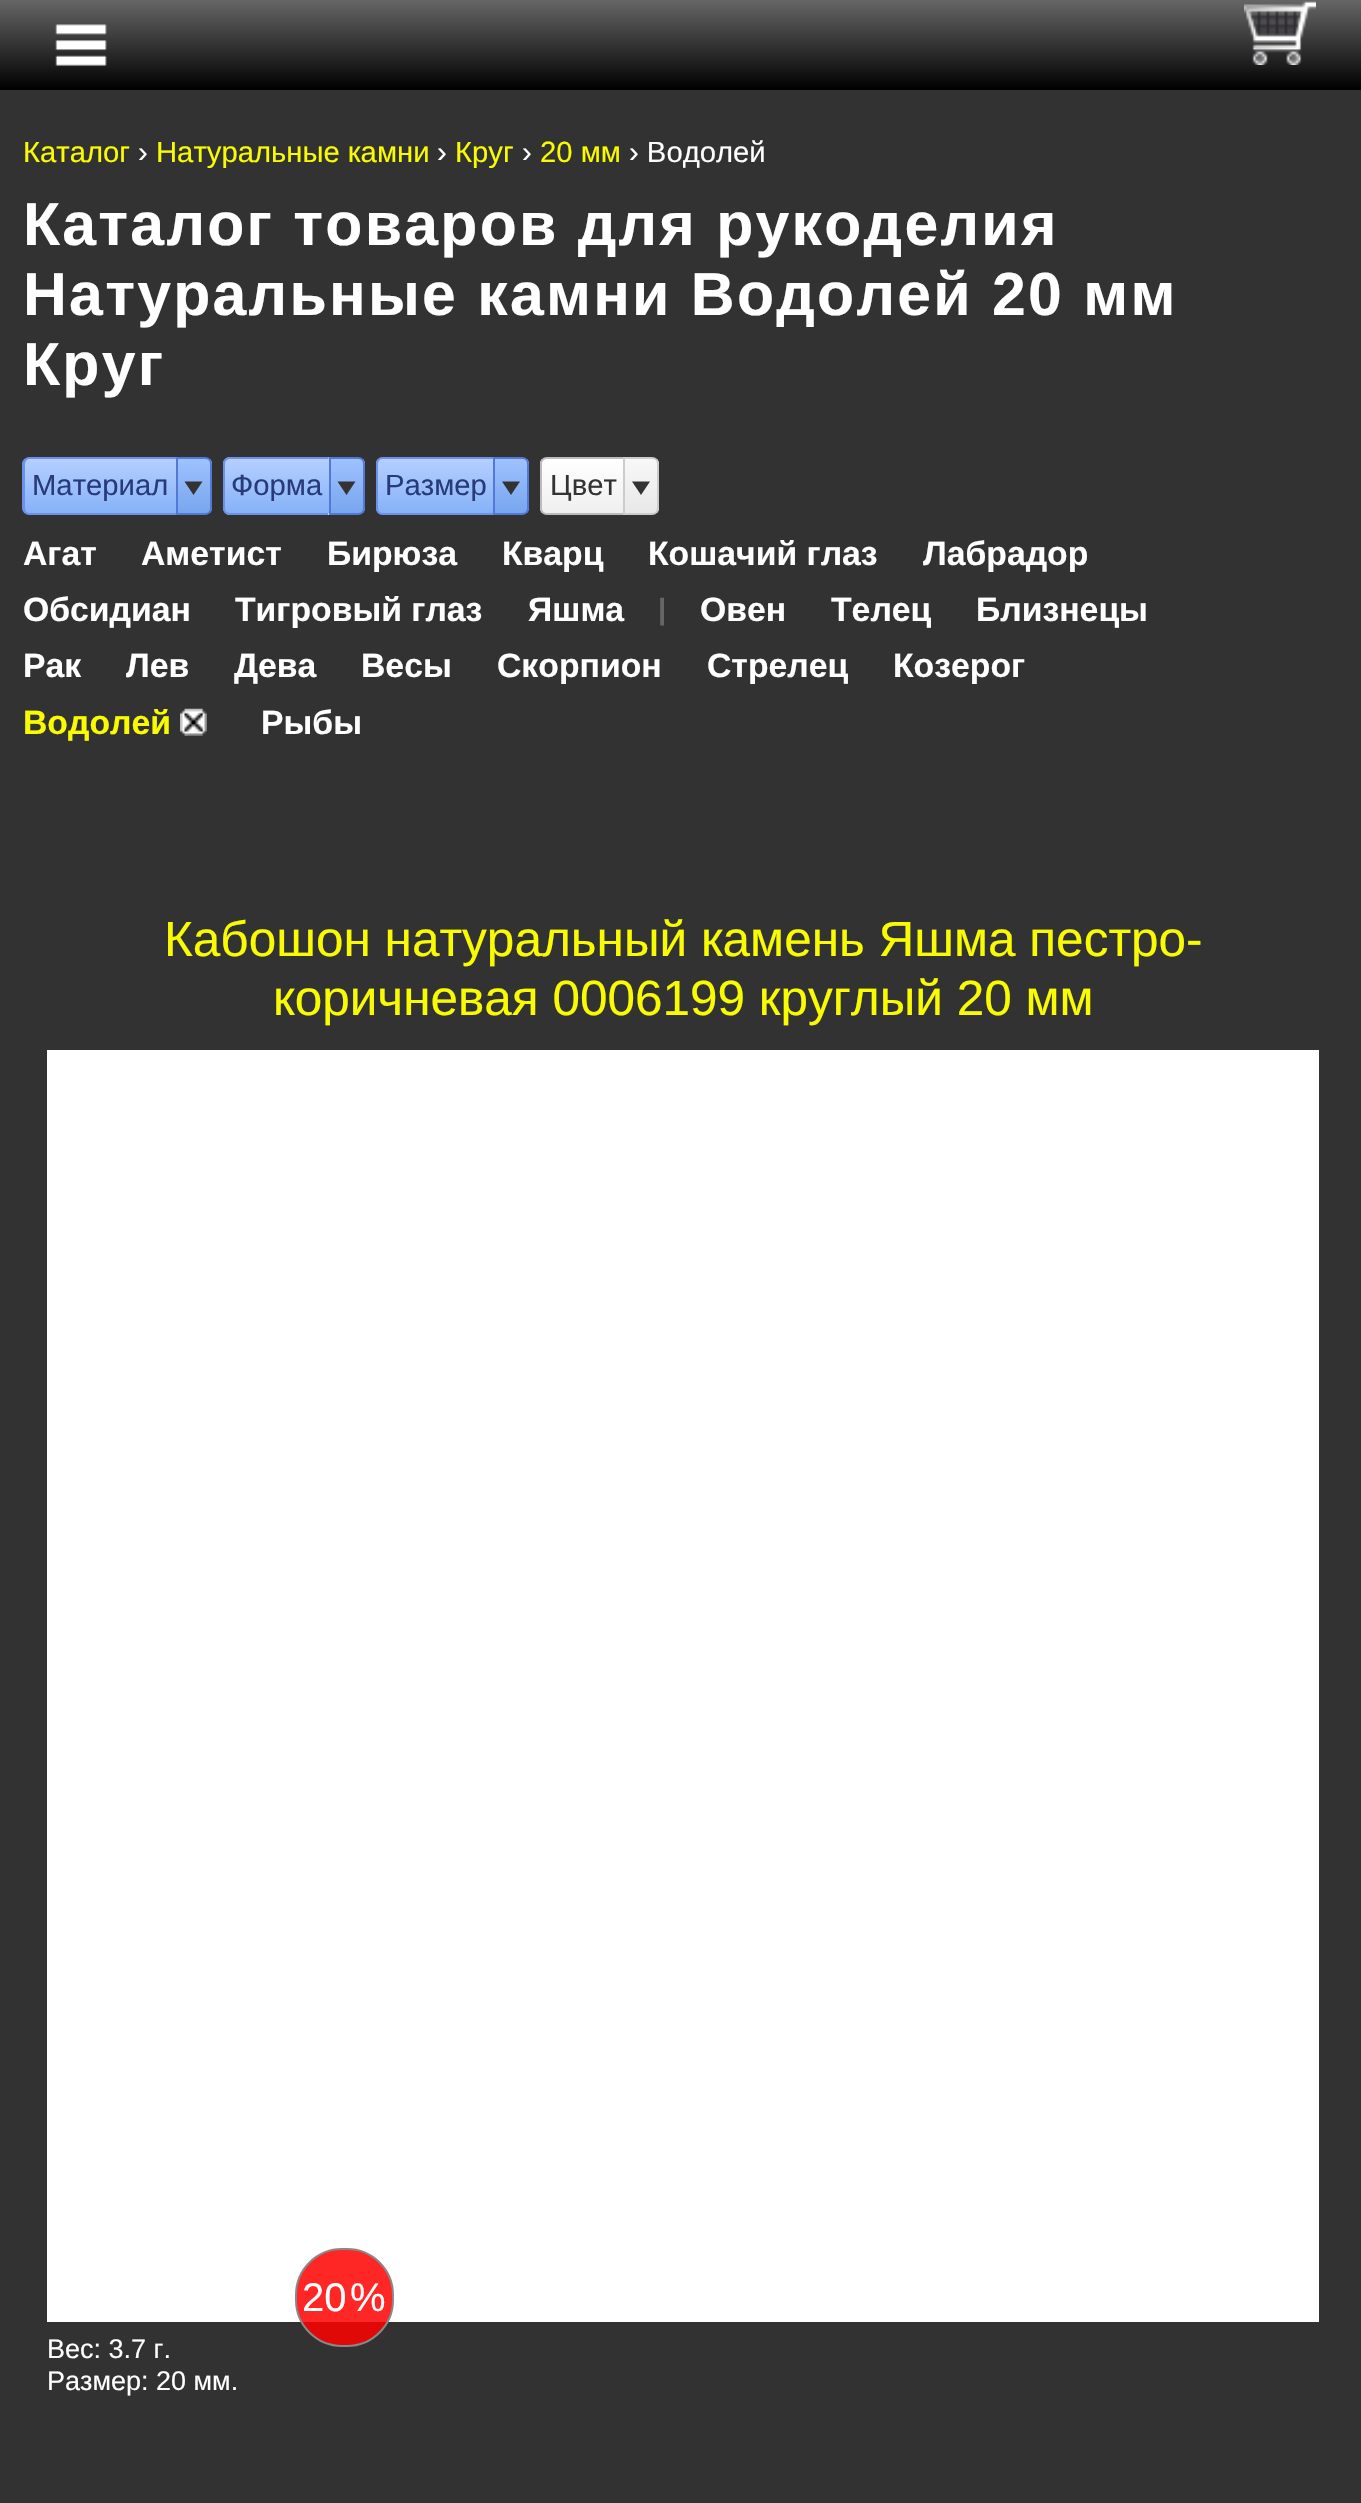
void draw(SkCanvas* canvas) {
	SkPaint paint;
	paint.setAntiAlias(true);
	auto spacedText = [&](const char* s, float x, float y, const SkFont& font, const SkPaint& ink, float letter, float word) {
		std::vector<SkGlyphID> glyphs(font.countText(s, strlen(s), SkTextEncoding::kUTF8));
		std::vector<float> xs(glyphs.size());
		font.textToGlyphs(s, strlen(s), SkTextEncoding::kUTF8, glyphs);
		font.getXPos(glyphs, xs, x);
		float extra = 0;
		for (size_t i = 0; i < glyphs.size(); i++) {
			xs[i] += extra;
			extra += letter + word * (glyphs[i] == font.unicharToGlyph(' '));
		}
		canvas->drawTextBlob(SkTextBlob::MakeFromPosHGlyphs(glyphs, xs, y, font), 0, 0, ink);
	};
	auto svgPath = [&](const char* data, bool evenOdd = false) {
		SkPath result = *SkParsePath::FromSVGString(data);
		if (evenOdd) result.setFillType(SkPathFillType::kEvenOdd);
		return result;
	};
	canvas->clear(0xff323232);
	{
		const SkColor colors[] = {0xff666666, 0xff000000};
		const float stops[] = {0, 1};
		const SkPoint ends[] = {{681, 0}, {681, 90}};
		paint.setShader(SkGradientShader::MakeLinear(ends, colors, stops, 2, SkTileMode::kClamp));
		paint.setAlpha(255);
	}
	canvas->drawRect(SkRect::MakeXYWH(0, 0, 1361, 90), paint);
	canvas->drawImageRect(SkImages::DeferredFromEncodedData(SkData::MakeFromFileName("img1.png")), SkRect::MakeXYWH(55, 24, 52, 42), SkSamplingOptions());
	canvas->drawImageRect(SkImages::DeferredFromEncodedData(SkData::MakeFromFileName("img2.png")), SkRect::MakeXYWH(1244, 1, 72, 64), SkSamplingOptions());
	SkFont f1(fontMgr->matchFamilyStyle("Liberation Sans", SkFontStyle::Normal()), 29.25);
	f1.setSubpixel(true);
	paint.setShader(nullptr);
	paint.setColor(0xfff9fc00);
	canvas->drawString("Каталог", 23, 162, f1, paint);
	paint.setColor(0xffffffff);
	canvas->drawString("›", 138, 162, f1, paint);
	paint.setColor(0xfff9fc00);
	canvas->drawString("Натуральные камни", 156, 162, f1, paint);
	paint.setColor(0xffffffff);
	canvas->drawString("›", 437, 162, f1, paint);
	paint.setColor(0xfff9fc00);
	canvas->drawString("Круг", 455, 162, f1, paint);
	paint.setColor(0xffffffff);
	canvas->drawString("›", 522, 162, f1, paint);
	paint.setColor(0xfff9fc00);
	canvas->drawString("20 мм", 540, 162, f1, paint);
	paint.setColor(0xffffffff);
	canvas->drawString("› Водолей", 629, 162, f1, paint);
	SkFont f2(fontMgr->matchFamilyStyle("Liberation Sans", SkFontStyle::Bold()), 60.75);
	f2.setSubpixel(true);
	spacedText("Каталог товаров для рукоделия", 23, 245, f2, paint, 2.25, 0);
	spacedText("Натуральные камни Водолей 20 мм", 23, 315, f2, paint, 2.25, 0);
	spacedText("Круг", 23, 385, f2, paint, 2.25, 0);
	canvas->save();
	canvas->clipPath(svgPath("M30 457H176V515H30C26 515 23 512 23 508V464C23 460 26 457 30 457Z"), true);
	{
		const SkColor colors[] = {0xffb5cfff, 0xff86b2f8};
		const float stops[] = {0, 1};
		const SkPoint ends[] = {{100, 459}, {100, 513}};
		paint.setShader(SkGradientShader::MakeLinear(ends, colors, stops, 2, SkTileMode::kClamp));
		paint.setAlpha(255);
	}
	canvas->drawRect(SkRect::MakeXYWH(23, 459, 153, 54), paint);
	canvas->restore();
	paint.setShader(nullptr);
	paint.setColor(0xff6d91ea);
	canvas->drawPath(svgPath("M29 457H176V515H29C26 515 22 512 22 508V464C22 460 26 457 29 457ZM29 459H176V513H29C27 513 25 511 25 508V464C25 461 27 459 29 459Z", true), paint);
	paint.setColor(0xff283a7a);
	canvas->drawString("Материал", 32, 495, f1, paint);
	canvas->save();
	canvas->clipPath(svgPath("M176 457H205C209 457 212 460 212 464V508C212 512 209 515 205 515H176Z"), true);
	{
		const SkColor colors[] = {0xff9fc1ff, 0xff78a6ee};
		const float stops[] = {0, 1};
		const SkPoint ends[] = {{194, 459}, {194, 513}};
		paint.setShader(SkGradientShader::MakeLinear(ends, colors, stops, 2, SkTileMode::kClamp));
		paint.setAlpha(255);
	}
	canvas->drawRect(SkRect::MakeXYWH(178, 459, 34, 54), paint);
	canvas->restore();
	paint.setStroke(true);
	paint.setStrokeWidth(2);
	paint.setShader(nullptr);
	paint.setColor(0xff5378d5);
	canvas->drawPath(svgPath("M177 458H205C208.5 458 211 460.5 211 464V508C211 511.5 208.5 514 205 514H177Z"), paint);
	paint.setStroke(false);
	paint.setColor(0xff333333);
	canvas->drawPath(svgPath("M184.5 481.5H202.5L193.5 495Z"), paint);
	canvas->save();
	canvas->clipPath(svgPath("M230 457H329V515H230C226 515 223 512 223 508V464C223 460 226 457 230 457Z"), true);
	{
		const SkColor colors[] = {0xffb5cfff, 0xff86b2f8};
		const float stops[] = {0, 1};
		const SkPoint ends[] = {{277, 405}, {277, 459}};
		paint.setShader(SkGradientShader::MakeLinear(ends, colors, stops, 2, SkTileMode::kClamp));
		paint.setAlpha(255);
	}
	canvas->drawRect(SkRect::MakeXYWH(223, 457, 106, 2), paint);
	{
		const SkColor colors[] = {0xffb5cfff, 0xff86b2f8};
		const float stops[] = {0, 1};
		const SkPoint ends[] = {{277, 459}, {277, 513}};
		paint.setShader(SkGradientShader::MakeLinear(ends, colors, stops, 2, SkTileMode::kClamp));
		paint.setAlpha(255);
	}
	canvas->drawRect(SkRect::MakeXYWH(223, 459, 106, 54), paint);
	{
		const SkColor colors[] = {0xffb5cfff, 0xff86b2f8};
		const float stops[] = {0, 1};
		const SkPoint ends[] = {{277, 513}, {277, 567}};
		paint.setShader(SkGradientShader::MakeLinear(ends, colors, stops, 2, SkTileMode::kClamp));
		paint.setAlpha(255);
	}
	canvas->drawRect(SkRect::MakeXYWH(223, 513, 106, 2), paint);
	canvas->restore();
	paint.setShader(nullptr);
	paint.setColor(0xff6d91ea);
	canvas->drawPath(svgPath("M230 457H328V515H230C226 515 223 512 223 508V464C223 460 226 457 230 457ZM230 459H328V513H230C227 513 225 511 225 508V464C225 461 227 459 230 459Z", true), paint);
	paint.setColor(0xff283a7a);
	canvas->drawString("Форма", 231, 495, f1, paint);
	canvas->save();
	canvas->clipPath(svgPath("M329 457H358C362 457 365 460 365 464V508C365 512 362 515 358 515H329Z"), true);
	{
		const SkColor colors[] = {0xff9fc1ff, 0xff78a6ee};
		const float stops[] = {0, 1};
		const SkPoint ends[] = {{347, 459}, {347, 513}};
		paint.setShader(SkGradientShader::MakeLinear(ends, colors, stops, 2, SkTileMode::kClamp));
		paint.setAlpha(255);
	}
	canvas->drawRect(SkRect::MakeXYWH(331, 459, 34, 54), paint);
	canvas->restore();
	paint.setStroke(true);
	paint.setShader(nullptr);
	paint.setColor(0xff5378d5);
	canvas->drawPath(svgPath("M330 458H358C361.5 458 364 460.5 364 464V508C364 511.5 361.5 514 358 514H330Z"), paint);
	paint.setStroke(false);
	paint.setColor(0xff333333);
	canvas->drawPath(svgPath("M337.5 481.5H355.5L346.5 495Z"), paint);
	canvas->save();
	canvas->clipPath(svgPath("M383 457H493V515H383C379 515 376 512 376 508V464C376 460 379 457 383 457Z"), true);
	{
		const SkColor colors[] = {0xffb5cfff, 0xff86b2f8};
		const float stops[] = {0, 1};
		const SkPoint ends[] = {{435, 459}, {435, 513}};
		paint.setShader(SkGradientShader::MakeLinear(ends, colors, stops, 2, SkTileMode::kClamp));
		paint.setAlpha(255);
	}
	canvas->drawRect(SkRect::MakeXYWH(376, 459, 117, 54), paint);
	canvas->restore();
	paint.setShader(nullptr);
	paint.setColor(0xff6d91ea);
	canvas->drawPath(svgPath("M382 457H493V515H382C379 515 376 512 376 508V464C376 460 379 457 382 457ZM382 459H493V513H382C380 513 378 511 378 508V464C378 461 380 459 382 459Z", true), paint);
	paint.setColor(0xff283a7a);
	canvas->drawString("Размер", 385, 495, f1, paint);
	canvas->save();
	canvas->clipPath(svgPath("M493 457H522C526 457 529 460 529 464V508C529 512 526 515 522 515H493Z"), true);
	{
		const SkColor colors[] = {0xff9fc1ff, 0xff78a6ee};
		const float stops[] = {0, 1};
		const SkPoint ends[] = {{511, 459}, {511, 513}};
		paint.setShader(SkGradientShader::MakeLinear(ends, colors, stops, 2, SkTileMode::kClamp));
		paint.setAlpha(255);
	}
	canvas->drawRect(SkRect::MakeXYWH(495, 459, 34, 54), paint);
	canvas->restore();
	paint.setStroke(true);
	paint.setShader(nullptr);
	paint.setColor(0xff5378d5);
	canvas->drawPath(svgPath("M494 458H522C525.5 458 528 460.5 528 464V508C528 511.5 525.5 514 522 514H494Z"), paint);
	paint.setStroke(false);
	paint.setColor(0xff333333);
	canvas->drawPath(svgPath("M502 481.5H520L511 495Z"), paint);
	canvas->save();
	canvas->clipPath(svgPath("M547 457H623V515H547C543 515 540 512 540 508V464C540 460 543 457 547 457Z"), true);
	{
		const SkColor colors[] = {0xffffffff, 0xffefefef};
		const float stops[] = {0, 1};
		const SkPoint ends[] = {{583, 459}, {583, 513}};
		paint.setShader(SkGradientShader::MakeLinear(ends, colors, stops, 2, SkTileMode::kClamp));
		paint.setAlpha(255);
	}
	canvas->drawRect(SkRect::MakeXYWH(540, 459, 83, 54), paint);
	canvas->restore();
	paint.setShader(nullptr);
	paint.setColor(0xffbbbbbb);
	canvas->drawPath(svgPath("M547 457H623V515H547C543 515 540 512 540 508V464C540 460 543 457 547 457ZM547 459H623V513H547C544 513 542 511 542 508V464C542 461 544 459 547 459Z", true), paint);
	paint.setColor(0xff333333);
	canvas->drawString("Цвет", 550, 495, f1, paint);
	canvas->save();
	canvas->clipPath(svgPath("M623 457H652C656 457 659 460 659 464V508C659 512 656 515 652 515H623Z"), true);
	{
		const SkColor colors[] = {0xfff8f8f8, 0xffe8e8e8};
		const float stops[] = {0, 1};
		const SkPoint ends[] = {{641, 459}, {641, 513}};
		paint.setShader(SkGradientShader::MakeLinear(ends, colors, stops, 2, SkTileMode::kClamp));
		paint.setAlpha(255);
	}
	canvas->drawRect(SkRect::MakeXYWH(625, 459, 34, 54), paint);
	canvas->restore();
	paint.setStroke(true);
	paint.setShader(nullptr);
	paint.setColor(0xffcccccc);
	canvas->drawPath(svgPath("M624 458H652C655.5 458 658 460.5 658 464V508C658 511.5 655.5 514 652 514H624Z"), paint);
	paint.setStroke(false);
	paint.setColor(0xff333333);
	canvas->drawPath(svgPath("M632 481.5H650L641 495Z"), paint);
	SkFont f3(fontMgr->matchFamilyStyle("Liberation Sans", SkFontStyle::Bold()), 33.75);
	f3.setSubpixel(true);
	paint.setColor(0xffffffff);
	canvas->drawString("Агат", 23, 565, f3, paint);
	canvas->drawString("Аметист", 141, 565, f3, paint);
	canvas->drawString("Бирюза", 327, 565, f3, paint);
	canvas->drawString("Кварц", 502, 565, f3, paint);
	canvas->drawString("Кошачий глаз", 648, 565, f3, paint);
	canvas->drawString("Лабрадор", 923, 565, f3, paint);
	canvas->drawString("Обсидиан", 23, 621, f3, paint);
	canvas->drawString("Тигровый глаз", 235, 621, f3, paint);
	canvas->drawString("Близнецы", 976, 621, f3, paint);
	canvas->drawString("Рак", 23, 677, f3, paint);
	canvas->drawString("Козерог", 893, 677, f3, paint);
	canvas->drawImageRect(SkImages::DeferredFromEncodedData(SkData::MakeFromFileName("img3.png")), SkRect::MakeXYWH(180, 708, 27, 28), SkSamplingOptions());
	paint.setColor(0xfff9fc00);
	canvas->drawString("Водолей", 23, 734, f3, paint);
	paint.setColor(0xffffffff);
	canvas->drawString("Рыбы", 261, 734, f3, paint);
	canvas->drawString("Стрелец", 707, 677, f3, paint);
	canvas->drawString("Скорпион", 497, 677, f3, paint);
	canvas->drawString("Весы", 361, 677, f3, paint);
	canvas->drawString("Дева", 234, 677, f3, paint);
	canvas->drawString("Лев", 126, 677, f3, paint);
	canvas->drawString("Телец", 831, 621, f3, paint);
	canvas->drawString("Яшма", 528, 621, f3, paint);
	SkFont f4(fontMgr->matchFamilyStyle("Liberation Sans", SkFontStyle::Bold()), 29.25);
	f4.setSubpixel(true);
	paint.setColor(0xff666666);
	canvas->drawString("|", 658, 619, f4, paint);
	paint.setColor(0xffffffff);
	canvas->drawString("Овен", 700, 621, f3, paint);
	SkFont f5(fontMgr->matchFamilyStyle("Liberation Sans", SkFontStyle::Normal()), 49.5);
	f5.setSubpixel(true);
	paint.setColor(0xfff9fc00);
	canvas->drawString("Кабошон натуральный камень Яшма пестро-", 164, 956, f5, paint);
	canvas->drawString("коричневая 0006199 круглый 20 мм", 273, 1015, f5, paint);
	paint.setColor(0xffffffff);
	canvas->drawRect(SkRect::MakeXYWH(47, 1050, 1272, 1272), paint);
	paint.setColor(0xd9ff0000);
	canvas->drawRoundRect(SkRect::MakeXYWH(296, 2249, 97, 97), 46, 46, paint);
	paint.setStroke(true);
	paint.setColor(0xff888888);
	canvas->drawRoundRect(SkRect::MakeXYWH(296, 2249, 97, 97), 46, 46, paint);
	SkFont f6(fontMgr->matchFamilyStyle("Liberation Sans", SkFontStyle::Normal()), 40);
	f6.setSubpixel(true);
	paint.setStroke(false);
	paint.setColor(0xffffffff);
	canvas->drawString("20", 302, 2311, f6, paint);
	canvas->drawString("%", 350, 2311, f6, paint);
	SkFont f7(fontMgr->matchFamilyStyle("Liberation Sans", SkFontStyle::Normal()), 27);
	f7.setSubpixel(true);
	canvas->drawString("Вес: 3.7 г.", 47, 2358, f7, paint);
	canvas->drawString("Размер: 20 мм.", 47, 2390, f7, paint);
}
